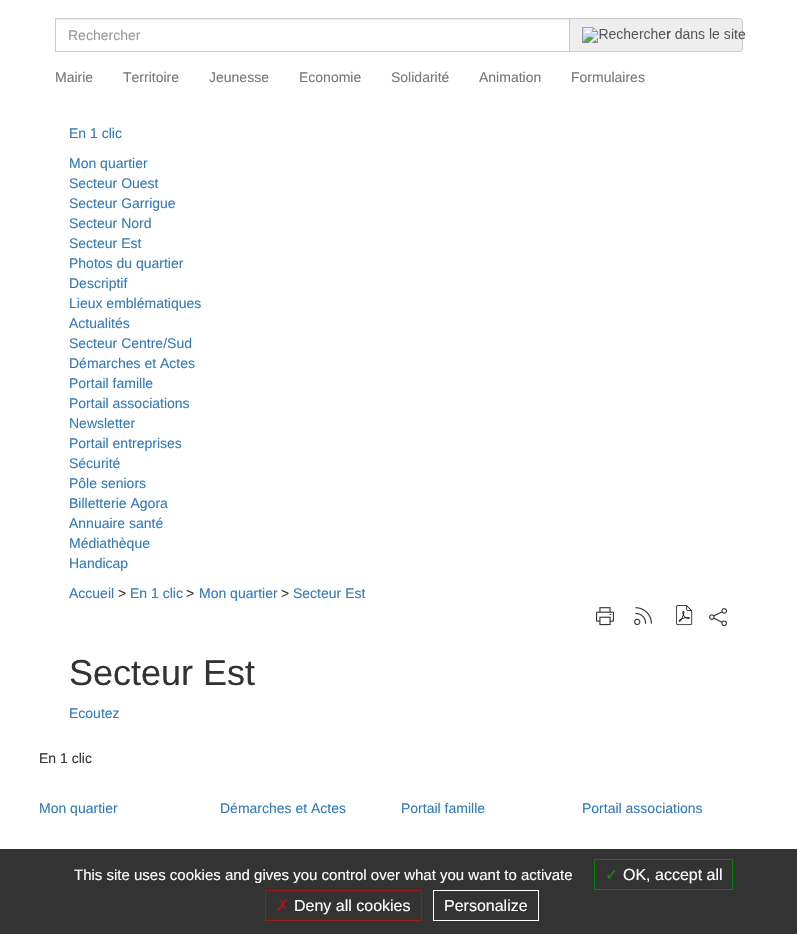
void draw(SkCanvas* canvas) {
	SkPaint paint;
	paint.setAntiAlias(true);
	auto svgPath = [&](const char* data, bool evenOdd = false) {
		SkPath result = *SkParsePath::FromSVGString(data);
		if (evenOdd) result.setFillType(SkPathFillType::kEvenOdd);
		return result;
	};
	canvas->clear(0xffffffff);
	paint.setColor(0xffececec);
	canvas->drawRect(SkRect::MakeXYWH(56, 19, 513, 1), paint);
	paint.setStroke(true);
	paint.setStrokeWidth(1);
	paint.setColor(0xffcccccc);
	canvas->drawRect(SkRect::MakeXYWH(55.5, 18.5, 514, 33), paint);
	SkFont f1(fontMgr->matchFamilyStyle("Liberation Sans", SkFontStyle::Normal()), 14);
	f1.setSubpixel(true);
	paint.setStroke(false);
	paint.setColor(0xff999999);
	canvas->drawString("Rechercher", 68, 40, f1, paint);
	paint.setColor(0xffeeeeee);
	canvas->drawPath(svgPath("M570 18H739C741 18 743 20 743 22V48C743 50 741 52 739 52H570Z"), paint);
	paint.setColor(0xffcccccc);
	canvas->drawPath(svgPath("M570 18H739C741 18 743 20 743 22V48C743 50 741 52 739 52H570ZM570 19H739C741 19 742 20 742 22V48C742 50 741 51 739 51H570Z", true), paint);
	canvas->drawImageRect(SkImages::DeferredFromEncodedData(SkData::MakeFromFileName("img1.png")), SkRect::MakeXYWH(582, 27, 148, 16), SkSamplingOptions());
	paint.setColor(0xff555555);
	canvas->drawString("r", 666, 39, f1, paint);
	canvas->drawString("ite", 731, 39, f1, paint);
	paint.setColor(0xff777777);
	canvas->drawString("Mairie", 55, 82, f1, paint);
	canvas->drawString("Territoire", 123, 82, f1, paint);
	canvas->drawString("Jeunesse", 209, 82, f1, paint);
	canvas->drawString("Economie", 299, 82, f1, paint);
	canvas->drawString("Solidarité", 391, 82, f1, paint);
	canvas->drawString("Animation", 479, 82, f1, paint);
	canvas->drawString("Formulaires", 571, 82, f1, paint);
	paint.setColor(0xff337ab7);
	canvas->drawString("En 1 clic", 69, 138, f1, paint);
	canvas->drawString("Mon quartier", 69, 168, f1, paint);
	canvas->drawString("Secteur Ouest", 69, 188, f1, paint);
	canvas->drawString("Secteur Garrigue", 69, 208, f1, paint);
	canvas->drawString("Secteur Nord", 69, 228, f1, paint);
	canvas->drawString("Secteur Est", 69, 248, f1, paint);
	canvas->drawString("Photos du quartier", 69, 268, f1, paint);
	canvas->drawString("Descriptif", 69, 288, f1, paint);
	canvas->drawString("Lieux emblématiques", 69, 308, f1, paint);
	canvas->drawString("Actualités", 69, 328, f1, paint);
	canvas->drawString("Secteur Centre/Sud", 69, 348, f1, paint);
	canvas->drawString("Démarches et Actes", 69, 368, f1, paint);
	canvas->drawString("Portail famille", 69, 388, f1, paint);
	canvas->drawString("Portail associations", 69, 408, f1, paint);
	canvas->drawString("Newsletter", 69, 428, f1, paint);
	canvas->drawString("Portail entreprises", 69, 448, f1, paint);
	canvas->drawString("Sécurité", 69, 468, f1, paint);
	canvas->drawString("Pôle seniors", 69, 488, f1, paint);
	canvas->drawString("Billetterie Agora", 69, 508, f1, paint);
	canvas->drawString("Annuaire santé", 69, 528, f1, paint);
	canvas->drawString("Médiathèque", 69, 548, f1, paint);
	canvas->drawString("Handicap", 69, 568, f1, paint);
	canvas->drawString("Accueil", 69, 598, f1, paint);
	paint.setColor(0xff333333);
	canvas->drawString(">", 118, 598, f1, paint);
	paint.setColor(0xff337ab7);
	canvas->drawString("En 1 clic", 130, 598, f1, paint);
	paint.setColor(0xff333333);
	canvas->drawString(">", 186, 598, f1, paint);
	paint.setColor(0xff337ab7);
	canvas->drawString("Mon quartier", 199, 598, f1, paint);
	paint.setColor(0xff333333);
	canvas->drawString(">", 281, 598, f1, paint);
	paint.setColor(0xff337ab7);
	canvas->drawString("Secteur Est", 293, 598, f1, paint);
	canvas->drawImageRect(SkImages::DeferredFromEncodedData(SkData::MakeFromFileName("img2.png")), SkRect::MakeXYWH(596, 607, 18, 19), SkSamplingOptions());
	canvas->drawImageRect(SkImages::DeferredFromEncodedData(SkData::MakeFromFileName("img3.png")), SkRect::MakeXYWH(634, 607, 18, 19), SkSamplingOptions());
	canvas->drawImageRect(SkImages::DeferredFromEncodedData(SkData::MakeFromFileName("img4.png")), SkRect::MakeXYWH(676, 605, 17, 21), SkSamplingOptions());
	canvas->drawImageRect(SkImages::DeferredFromEncodedData(SkData::MakeFromFileName("img5.png")), SkRect::MakeXYWH(709, 608, 18, 19), SkSamplingOptions());
	SkFont f2(fontMgr->matchFamilyStyle("Liberation Sans", SkFontStyle::Normal()), 36);
	f2.setSubpixel(true);
	paint.setColor(0xff333333);
	canvas->drawString("Secteur Est", 69, 685, f2, paint);
	paint.setColor(0xff337ab7);
	canvas->drawString("Ecoutez", 69, 718, f1, paint);
	paint.setColor(0xff333333);
	canvas->drawString("En 1 clic", 39, 763, f1, paint);
	paint.setColor(0xff337ab7);
	canvas->drawString("Mon quartier", 39, 813, f1, paint);
	canvas->drawString("Démarches et Actes", 220, 813, f1, paint);
	canvas->drawString("Portail famille", 401, 813, f1, paint);
	canvas->drawString("Portail associations", 582, 813, f1, paint);
	paint.setColor(0xff333333);
	canvas->drawRect(SkRect::MakeXYWH(0, 849, 797, 85), paint);
	SkFont f3(fontMgr->matchFamilyStyle("Liberation Sans", SkFontStyle::Normal()), 15);
	f3.setSubpixel(true);
	paint.setColor(0xffffffff);
	canvas->drawString("This site uses cookies and gives you control over what you want to activate", 74, 880, f3, paint);
	paint.setStroke(true);
	paint.setColor(0xff008300);
	canvas->drawRect(SkRect::MakeXYWH(594.5, 859.5, 138, 30), paint);
	SkFont f4(fontMgr->matchFamilyStyle("DejaVu Sans", SkFontStyle::Normal()), 16);
	f4.setSubpixel(true);
	paint.setStroke(false);
	paint.setColor(0xff1b870b);
	canvas->drawString("✓", 605, 880, f4, paint);
	SkFont f5(fontMgr->matchFamilyStyle("Liberation Sans", SkFontStyle::Normal()), 16);
	f5.setSubpixel(true);
	paint.setColor(0xffffffff);
	canvas->drawString("OK, accept all", 623, 880, f5, paint);
	paint.setStroke(true);
	paint.setColor(0xff9c1a1a);
	canvas->drawRect(SkRect::MakeXYWH(265.5, 890.5, 156, 30), paint);
	paint.setStroke(false);
	canvas->drawString("✗", 276, 911, f4, paint);
	paint.setColor(0xffffffff);
	canvas->drawString("Deny all cookies", 294, 911, f5, paint);
	paint.setStroke(true);
	canvas->drawRect(SkRect::MakeXYWH(433.5, 890.5, 105, 30), paint);
	paint.setStroke(false);
	canvas->drawString("Personalize", 444, 911, f5, paint);
}
